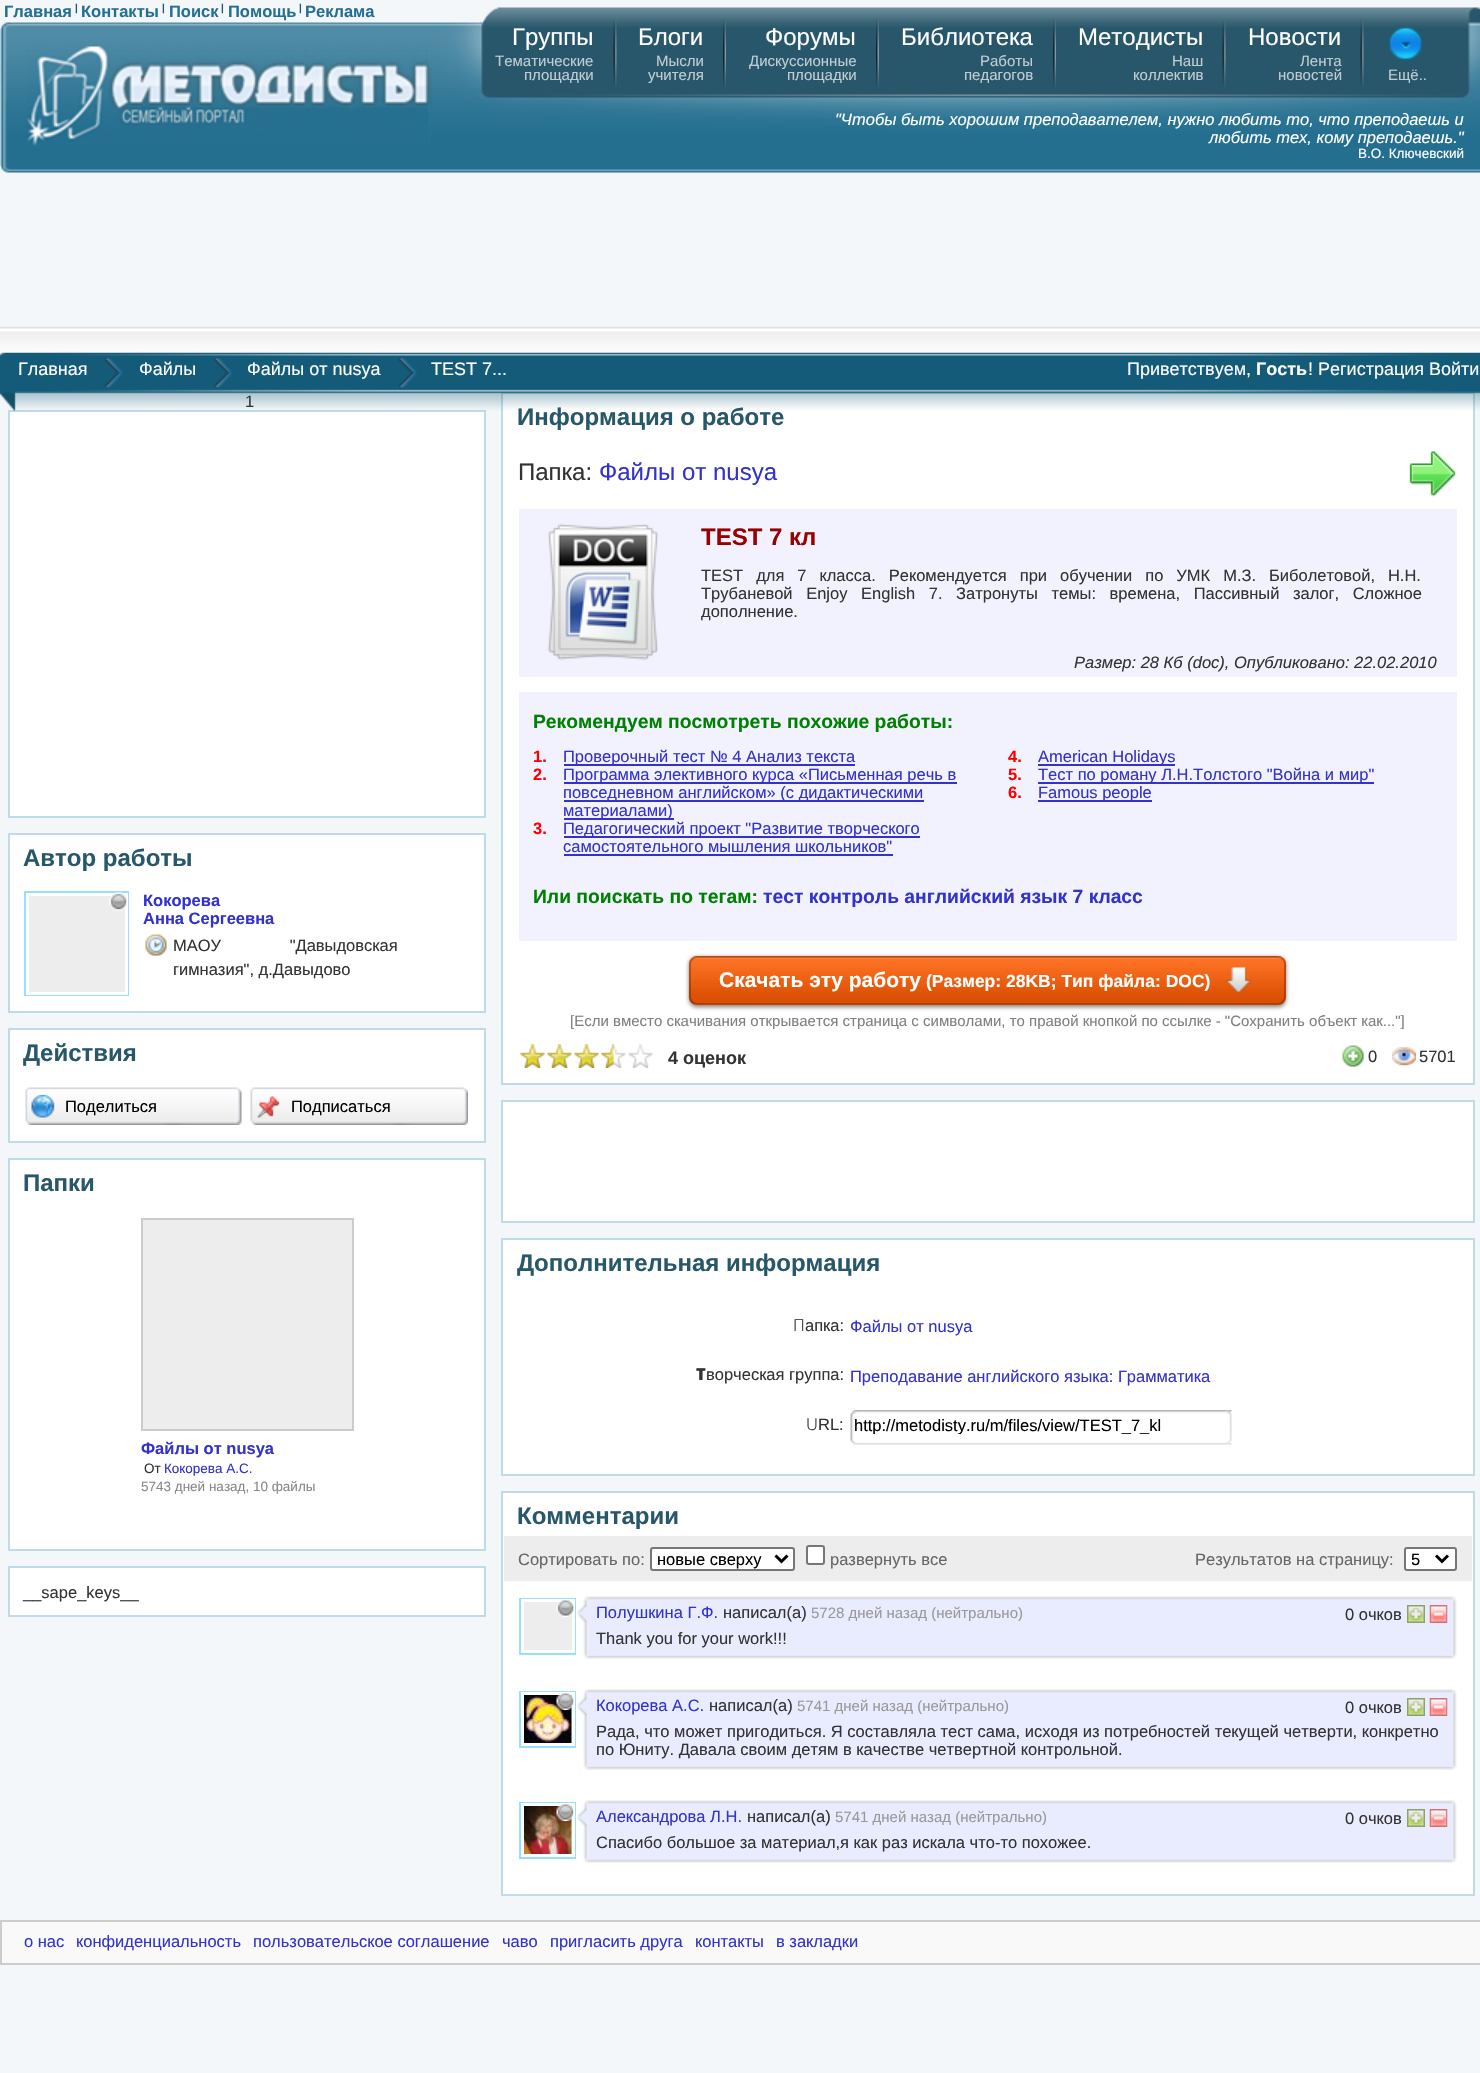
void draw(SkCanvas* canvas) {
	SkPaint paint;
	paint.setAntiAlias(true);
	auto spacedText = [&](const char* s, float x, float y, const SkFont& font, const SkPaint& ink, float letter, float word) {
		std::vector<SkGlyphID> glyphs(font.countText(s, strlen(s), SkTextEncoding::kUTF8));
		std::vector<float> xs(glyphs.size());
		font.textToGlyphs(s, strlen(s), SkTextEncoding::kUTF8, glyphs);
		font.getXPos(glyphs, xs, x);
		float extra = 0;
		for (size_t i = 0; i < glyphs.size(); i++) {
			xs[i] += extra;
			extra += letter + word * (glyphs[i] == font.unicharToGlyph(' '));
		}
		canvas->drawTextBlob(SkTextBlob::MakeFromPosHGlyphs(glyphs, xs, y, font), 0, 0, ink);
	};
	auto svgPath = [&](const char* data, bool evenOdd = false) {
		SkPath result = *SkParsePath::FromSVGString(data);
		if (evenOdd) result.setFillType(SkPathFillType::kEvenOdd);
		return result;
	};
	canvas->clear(0xfff4f7fa);
	canvas->drawImageRect(SkImages::DeferredFromEncodedData(SkData::MakeFromFileName("img1.png")), SkRect::MakeXYWH(0, 22, 1480, 151), SkSamplingOptions());
	SkFont f1(fontMgr->matchFamilyStyle("Liberation Sans", SkFontStyle::Bold()), 16.5);
	f1.setSubpixel(true);
	paint.setColor(0xff257090);
	canvas->drawString("Главная", 4, 17, f1, paint);
	SkFont f2(fontMgr->matchFamilyStyle("Liberation Sans", SkFontStyle::Bold()), 10);
	f2.setSubpixel(true);
	paint.setColor(0xff28576b);
	canvas->drawString("|", 75, 11, f2, paint);
	paint.setColor(0xff257090);
	canvas->drawString("Контакты", 81, 17, f1, paint);
	paint.setColor(0xff28576b);
	canvas->drawString("|", 162, 11, f2, paint);
	paint.setColor(0xff257090);
	canvas->drawString("Поиск", 169, 17, f1, paint);
	paint.setColor(0xff28576b);
	canvas->drawString("|", 221, 11, f2, paint);
	paint.setColor(0xff257090);
	canvas->drawString("Помощь", 228, 17, f1, paint);
	paint.setColor(0xff28576b);
	canvas->drawString("|", 299, 11, f2, paint);
	paint.setColor(0xff257090);
	canvas->drawString("Реклама", 305, 17, f1, paint);
	canvas->drawImageRect(SkImages::DeferredFromEncodedData(SkData::MakeFromFileName("img2.png")), SkRect::MakeXYWH(26, 46, 406, 100), SkSamplingOptions());
	canvas->drawImageRect(SkImages::DeferredFromEncodedData(SkData::MakeFromFileName("img3.png")), SkRect::MakeXYWH(480, 7, 1000, 91), SkSamplingOptions());
	canvas->drawImageRect(SkImages::DeferredFromEncodedData(SkData::MakeFromFileName("img4.png")), SkRect::MakeXYWH(613, 19, 4, 68), SkSamplingOptions());
	SkFont f3(fontMgr->matchFamilyStyle("Liberation Sans", SkFontStyle::Normal()), 24);
	f3.setSubpixel(true);
	paint.setColor(0xffffffff);
	canvas->drawString("Группы", 512, 45, f3, paint);
	SkFont f4(fontMgr->matchFamilyStyle("Liberation Sans", SkFontStyle::Normal()), 15);
	f4.setSubpixel(true);
	paint.setColor(0xffbfcdd3);
	canvas->drawString("Тематические", 495, 66, f4, paint);
	canvas->drawString("площадки", 524, 80, f4, paint);
	canvas->drawImageRect(SkImages::DeferredFromEncodedData(SkData::MakeFromFileName("img5.png")), SkRect::MakeXYWH(723, 19, 3, 69), SkSamplingOptions());
	paint.setColor(0xffffffff);
	canvas->drawString("Блоги", 638, 45, f3, paint);
	paint.setColor(0xffbfcdd3);
	canvas->drawString("Мысли", 656, 66, f4, paint);
	canvas->drawString("учителя", 648, 80, f4, paint);
	canvas->drawImageRect(SkImages::DeferredFromEncodedData(SkData::MakeFromFileName("img6.png")), SkRect::MakeXYWH(876, 19, 3, 69), SkSamplingOptions());
	paint.setColor(0xffffffff);
	canvas->drawString("Форумы", 765, 45, f3, paint);
	paint.setColor(0xffbfcdd3);
	canvas->drawString("Дискуссионные", 749, 66, f4, paint);
	canvas->drawString("площадки", 787, 80, f4, paint);
	canvas->drawImageRect(SkImages::DeferredFromEncodedData(SkData::MakeFromFileName("img5.png")), SkRect::MakeXYWH(1053, 19, 3, 69), SkSamplingOptions());
	paint.setColor(0xffffffff);
	canvas->drawString("Библиотека", 901, 45, f3, paint);
	paint.setColor(0xffbfcdd3);
	canvas->drawString("Работы", 980, 66, f4, paint);
	canvas->drawString("педагогов", 964, 80, f4, paint);
	canvas->drawImageRect(SkImages::DeferredFromEncodedData(SkData::MakeFromFileName("img4.png")), SkRect::MakeXYWH(1222, 19, 4, 68), SkSamplingOptions());
	paint.setColor(0xffffffff);
	canvas->drawString("Методисты", 1078, 45, f3, paint);
	paint.setColor(0xffbfcdd3);
	canvas->drawString("Наш", 1172, 66, f4, paint);
	canvas->drawString("коллектив", 1133, 80, f4, paint);
	canvas->drawImageRect(SkImages::DeferredFromEncodedData(SkData::MakeFromFileName("img4.png")), SkRect::MakeXYWH(1360, 19, 4, 68), SkSamplingOptions());
	paint.setColor(0xffffffff);
	canvas->drawString("Новости", 1248, 45, f3, paint);
	paint.setColor(0xffbfcdd3);
	canvas->drawString("Лента", 1300, 66, f4, paint);
	canvas->drawString("новостей", 1278, 80, f4, paint);
	canvas->drawImageRect(SkImages::DeferredFromEncodedData(SkData::MakeFromFileName("img7.png")), SkRect::MakeXYWH(1389, 27, 34, 34), SkSamplingOptions());
	canvas->drawString("Ещё..", 1388, 80, f4, paint);
	SkFont f5(fontMgr->matchFamilyStyle("Liberation Sans", SkFontStyle::Italic()), 16.5);
	f5.setSubpixel(true);
	paint.setColor(0xffffffff);
	canvas->drawString("\"Чтобы быть хорошим преподавателем, нужно любить то, что преподаешь и", 835, 125, f5, paint);
	canvas->drawString("любить тех, кому преподаешь.\"", 1209, 143, f5, paint);
	SkFont f6(fontMgr->matchFamilyStyle("Liberation Sans", SkFontStyle::Normal()), 13.5);
	f6.setSubpixel(true);
	canvas->drawString("В.О. Ключевский", 1358, 158, f6, paint);
	SkFont f7(fontMgr->matchFamilyStyle("Liberation Sans", SkFontStyle::Normal()), 16.5);
	f7.setSubpixel(true);
	paint.setColor(0xff333333);
	canvas->drawString("1", 245, 407, f7, paint);
	paint.setColor(0xffffffff);
	canvas->drawRect(SkRect::MakeXYWH(9, 411, 476, 406), paint);
	paint.setStroke(true);
	paint.setStrokeWidth(2);
	paint.setColor(0xffbfdbe7);
	canvas->drawRect(SkRect::MakeXYWH(9, 411, 476, 406), paint);
	paint.setStroke(false);
	paint.setColor(0xffffffff);
	canvas->drawRect(SkRect::MakeXYWH(502, 393, 972, 691), paint);
	paint.setStroke(true);
	paint.setColor(0xffbfdbe7);
	canvas->drawRect(SkRect::MakeXYWH(502, 393, 972, 691), paint);
	SkFont f8(fontMgr->matchFamilyStyle("Liberation Sans", SkFontStyle::Bold()), 24);
	f8.setSubpixel(true);
	paint.setStroke(false);
	paint.setColor(0xff28576b);
	canvas->drawString("Информация о работе", 517, 425, f8, paint);
	canvas->drawImageRect(SkImages::DeferredFromEncodedData(SkData::MakeFromFileName("img9.png")), SkRect::MakeXYWH(0, 352, 1480, 59), SkSamplingOptions());
	canvas->drawImageRect(SkImages::DeferredFromEncodedData(SkData::MakeFromFileName("img8.png")), SkRect::MakeXYWH(0, 326, 1480, 27), SkSamplingOptions());
	SkFont f9(fontMgr->matchFamilyStyle("Liberation Sans", SkFontStyle::Normal()), 18);
	f9.setSubpixel(true);
	paint.setColor(0xffffffff);
	canvas->drawString("Главная", 18, 375, f9, paint);
	canvas->drawImageRect(SkImages::DeferredFromEncodedData(SkData::MakeFromFileName("img10.png")), SkRect::MakeXYWH(104, 358, 19, 30), SkSamplingOptions());
	canvas->drawString("Файлы", 139, 375, f9, paint);
	canvas->drawImageRect(SkImages::DeferredFromEncodedData(SkData::MakeFromFileName("img11.png")), SkRect::MakeXYWH(214, 358, 19, 30), SkSamplingOptions());
	canvas->drawString("Файлы от nusya", 247, 375, f9, paint);
	canvas->drawImageRect(SkImages::DeferredFromEncodedData(SkData::MakeFromFileName("img12.png")), SkRect::MakeXYWH(398, 358, 19, 30), SkSamplingOptions());
	canvas->drawString("TEST 7...", 431, 375, f9, paint);
	canvas->drawString("Приветствуем,", 1127, 375, f9, paint);
	SkFont f10(fontMgr->matchFamilyStyle("Liberation Sans", SkFontStyle::Bold()), 18);
	f10.setSubpixel(true);
	canvas->drawString("Гость", 1256, 375, f10, paint);
	canvas->drawString("! Регистрация Войти", 1308, 375, f9, paint);
	canvas->drawRect(SkRect::MakeXYWH(9, 834, 476, 178), paint);
	paint.setStroke(true);
	paint.setColor(0xffbfdbe7);
	canvas->drawRect(SkRect::MakeXYWH(9, 834, 476, 178), paint);
	paint.setStroke(false);
	paint.setColor(0xff28576b);
	canvas->drawString("Автор работы", 23, 866, f8, paint);
	paint.setStroke(true);
	paint.setColor(0xff95dfff);
	canvas->drawRect(SkRect::MakeXYWH(25, 892, 103, 103), paint);
	paint.setStroke(false);
	paint.setColor(0xffededed);
	canvas->drawRect(SkRect::MakeXYWH(27.5, 894.5, 99, 99), paint);
	paint.setStroke(true);
	paint.setStrokeWidth(3);
	paint.setColor(0xffffffff);
	canvas->drawRect(SkRect::MakeXYWH(27.5, 894.5, 99, 99), paint);
	canvas->drawImageRect(SkImages::DeferredFromEncodedData(SkData::MakeFromFileName("img13.png")), SkRect::MakeXYWH(109, 892, 18, 19), SkSamplingOptions());
	paint.setStroke(false);
	paint.setColor(0xff3333cc);
	canvas->drawString("Кокорева", 143, 906, f1, paint);
	canvas->drawString("Анна Сергеевна", 143, 924, f1, paint);
	canvas->drawImageRect(SkImages::DeferredFromEncodedData(SkData::MakeFromFileName("img14.png")), SkRect::MakeXYWH(145, 934, 22, 22), SkSamplingOptions());
	paint.setColor(0xff333333);
	spacedText("МАОУ \"Давыдовская", 173, 951, f7, paint, 0, 64);
	canvas->drawString("гимназия\", д.Давыдово", 173, 975, f7, paint);
	paint.setColor(0xffffffff);
	canvas->drawRect(SkRect::MakeXYWH(9, 1029, 476, 113), paint);
	paint.setStroke(true);
	paint.setStrokeWidth(2);
	paint.setColor(0xffbfdbe7);
	canvas->drawRect(SkRect::MakeXYWH(9, 1029, 476, 113), paint);
	paint.setStroke(false);
	paint.setColor(0xff28576b);
	canvas->drawString("Действия", 23, 1061, f8, paint);
	canvas->drawImageRect(SkImages::DeferredFromEncodedData(SkData::MakeFromFileName("img15.png")), SkRect::MakeXYWH(25, 1087, 211, 38), SkSamplingOptions());
	canvas->drawImageRect(SkImages::DeferredFromEncodedData(SkData::MakeFromFileName("img16.png")), SkRect::MakeXYWH(31, 1095, 24, 23), SkSamplingOptions());
	paint.setColor(0xff000000);
	canvas->drawString("Поделиться", 65, 1112, f7, paint);
	canvas->drawImageRect(SkImages::DeferredFromEncodedData(SkData::MakeFromFileName("img17.png")), SkRect::MakeXYWH(235, 1087, 7, 38), SkSamplingOptions());
	canvas->drawImageRect(SkImages::DeferredFromEncodedData(SkData::MakeFromFileName("img18.png")), SkRect::MakeXYWH(250, 1087, 212, 38), SkSamplingOptions());
	canvas->drawImageRect(SkImages::DeferredFromEncodedData(SkData::MakeFromFileName("img19.png")), SkRect::MakeXYWH(257, 1096, 23, 22), SkSamplingOptions());
	canvas->drawString("Подписаться", 291, 1112, f7, paint);
	canvas->drawImageRect(SkImages::DeferredFromEncodedData(SkData::MakeFromFileName("img20.png")), SkRect::MakeXYWH(462, 1087, 6, 38), SkSamplingOptions());
	paint.setColor(0xffffffff);
	canvas->drawRect(SkRect::MakeXYWH(9, 1159, 476, 391), paint);
	paint.setStroke(true);
	paint.setColor(0xffbfdbe7);
	canvas->drawRect(SkRect::MakeXYWH(9, 1159, 476, 391), paint);
	paint.setStroke(false);
	paint.setColor(0xff28576b);
	canvas->drawString("Папки", 23, 1191, f8, paint);
	paint.setColor(0xffededed);
	canvas->drawRect(SkRect::MakeXYWH(142, 1219, 211, 211), paint);
	paint.setStroke(true);
	paint.setColor(0xffcccccc);
	canvas->drawRect(SkRect::MakeXYWH(142, 1219, 211, 211), paint);
	paint.setStroke(false);
	paint.setColor(0xff3333cc);
	canvas->drawString("Файлы от nusya", 141, 1454, f1, paint);
	paint.setColor(0xff333333);
	canvas->drawString("От", 144, 1473, f6, paint);
	paint.setColor(0xff3333cc);
	canvas->drawString("Кокорева А.С.", 164, 1473, f6, paint);
	paint.setColor(0xff888888);
	canvas->drawString("5743 дней назад, 10 файлы", 141, 1491, f6, paint);
	paint.setColor(0xffffffff);
	canvas->drawRect(SkRect::MakeXYWH(9, 1567, 476, 49), paint);
	paint.setStroke(true);
	paint.setColor(0xffbfdbe7);
	canvas->drawRect(SkRect::MakeXYWH(9, 1567, 476, 49), paint);
	paint.setStroke(false);
	paint.setColor(0xff333333);
	canvas->drawString("__sape_keys__", 23, 1598, f7, paint);
	canvas->drawString("Папка:", 518, 480, f3, paint);
	paint.setColor(0xff3333cc);
	canvas->drawString("Файлы от nusya", 599, 480, f3, paint);
	canvas->drawImageRect(SkImages::DeferredFromEncodedData(SkData::MakeFromFileName("img21.png")), SkRect::MakeXYWH(1409, 451, 47, 46), SkSamplingOptions());
	paint.setColor(0xfff2f2ff);
	canvas->drawRect(SkRect::MakeXYWH(519, 509, 938, 168), paint);
	canvas->drawImageRect(SkImages::DeferredFromEncodedData(SkData::MakeFromFileName("img22.png")), SkRect::MakeXYWH(547, 523, 112, 138), SkSamplingOptions());
	paint.setColor(0xff990000);
	canvas->drawString("TEST 7 кл", 701, 545, f8, paint);
	paint.setColor(0xff333333);
	spacedText("TEST для 7 класса. Рекомендуется при обучении по УМК М.З. Биболетовой, Н.Н.", 701, 581, f7, paint, 0, 8.4);
	spacedText("Трубаневой Enjoy English 7. Затронуты темы: времена, Пассивный залог, Сложное", 701, 599, f7, paint, 0, 9);
	canvas->drawString("дополнение.", 701, 617, f7, paint);
	canvas->drawString("Размер: 28 Кб (doc), Опубликовано: 22.02.2010", 1074, 668, f5, paint);
	paint.setColor(0xfff2f2ff);
	canvas->drawRect(SkRect::MakeXYWH(519, 692, 938, 249), paint);
	SkFont f11(fontMgr->matchFamilyStyle("Liberation Sans", SkFontStyle::Bold()), 19.3);
	f11.setSubpixel(true);
	paint.setColor(0xff008000);
	canvas->drawString("Рекомендуем посмотреть похожие работы:", 533, 728, f11, paint);
	paint.setColor(0xffff0000);
	canvas->drawString("1.", 533, 762, f1, paint);
	paint.setColor(0xff3333cc);
	canvas->drawRect(SkRect::MakeXYWH(564, 764, 291, 2), paint);
	canvas->drawString("Проверочный тест № 4 Анализ текста", 563, 762, f7, paint);
	paint.setColor(0xffff0000);
	canvas->drawString("2.", 533, 780, f1, paint);
	paint.setColor(0xff3333cc);
	canvas->drawRect(SkRect::MakeXYWH(564, 782, 393, 2), paint);
	canvas->drawString("Программа элективного курса «Письменная речь в", 563, 780, f7, paint);
	canvas->drawRect(SkRect::MakeXYWH(564, 800, 360, 2), paint);
	canvas->drawString("повседневном английском» (с дидактическими", 563, 798, f7, paint);
	canvas->drawRect(SkRect::MakeXYWH(564, 818, 110, 2), paint);
	canvas->drawString("материалами)", 563, 816, f7, paint);
	paint.setColor(0xffff0000);
	canvas->drawString("3.", 533, 834, f1, paint);
	paint.setColor(0xff3333cc);
	canvas->drawRect(SkRect::MakeXYWH(564, 836, 356, 2), paint);
	canvas->drawString("Педагогический проект \"Развитие творческого", 563, 834, f7, paint);
	canvas->drawString("самостоятельного мышления школьников\"", 563, 852, f7, paint);
	canvas->drawRect(SkRect::MakeXYWH(564, 854, 329, 2), paint);
	paint.setColor(0xffff0000);
	canvas->drawString("4.", 1008, 762, f1, paint);
	paint.setColor(0xff3333cc);
	canvas->drawRect(SkRect::MakeXYWH(1038, 764, 137, 2), paint);
	canvas->drawString("American Holidays", 1038, 762, f7, paint);
	paint.setColor(0xffff0000);
	canvas->drawString("5.", 1008, 780, f1, paint);
	paint.setColor(0xff3333cc);
	canvas->drawRect(SkRect::MakeXYWH(1038, 782, 336, 2), paint);
	canvas->drawString("Тест по роману Л.Н.Толстого \"Война и мир\"", 1038, 780, f7, paint);
	paint.setColor(0xffff0000);
	canvas->drawString("6.", 1008, 798, f1, paint);
	paint.setColor(0xff3333cc);
	canvas->drawRect(SkRect::MakeXYWH(1038, 800, 114, 2), paint);
	canvas->drawString("Famous people", 1038, 798, f7, paint);
	paint.setColor(0xff008000);
	canvas->drawString("Или поискать по тегам:", 533, 903, f11, paint);
	paint.setColor(0xff3333cc);
	canvas->drawString("тест контроль английский язык 7 класс", 763, 903, f11, paint);
	paint.setColor(0x80000000);
	paint.setMaskFilter(SkMaskFilter::MakeBlur(kNormal_SkBlurStyle, 2));
	canvas->drawRoundRect(SkRect::MakeXYWH(689, 957, 597, 50), 8, 8, paint);
	paint.setMaskFilter(nullptr);
	paint.setColor(0xffff5c00);
	canvas->drawRoundRect(SkRect::MakeXYWH(689, 956, 597, 49), 8, 8, paint);
	canvas->drawImageRect(SkImages::DeferredFromEncodedData(SkData::MakeFromFileName("img23.png")), SkRect::MakeXYWH(688, 957, 598, 47), SkSamplingOptions());
	paint.setStroke(true);
	paint.setColor(0x40000000);
	canvas->drawRoundRect(SkRect::MakeXYWH(690, 957, 595, 47), 7, 7, paint);
	SkFont f12(fontMgr->matchFamilyStyle("Liberation Sans", SkFontStyle::Bold()), 21);
	f12.setSubpixel(true);
	paint.setStroke(false);
	paint.setColor(0xffffffff);
	canvas->drawString("Скачать эту работу", 719, 987, f12, paint);
	SkFont f13(fontMgr->matchFamilyStyle("Liberation Sans", SkFontStyle::Bold()), 17.5);
	f13.setSubpixel(true);
	canvas->drawString("(Размер: 28KB; Тип файла: DOC)", 926, 987, f13, paint);
	canvas->drawImageRect(SkImages::DeferredFromEncodedData(SkData::MakeFromFileName("img24.png")), SkRect::MakeXYWH(1225, 967, 27, 25), SkSamplingOptions());
	paint.setColor(0xff808080);
	canvas->drawString("[Если вместо скачивания открывается страница с символами, то правой кнопкой по ссылке - \"Сохранить объект как...\"]", 570, 1026, f4, paint);
	canvas->drawImageRect(SkImages::DeferredFromEncodedData(SkData::MakeFromFileName("img25.png")), SkRect::MakeXYWH(520, 1044, 133, 24), SkSamplingOptions());
	canvas->drawImageRect(SkImages::DeferredFromEncodedData(SkData::MakeFromFileName("img26.png")), SkRect::MakeXYWH(520, 1044, 94, 24), SkSamplingOptions());
	paint.setColor(0xff333333);
	canvas->drawString("4 оценок", 668, 1064, f10, paint);
	canvas->drawImageRect(SkImages::DeferredFromEncodedData(SkData::MakeFromFileName("img27.png")), SkRect::MakeXYWH(1342, 1045, 22, 22), SkSamplingOptions());
	canvas->drawString("0", 1368, 1062, f7, paint);
	canvas->drawImageRect(SkImages::DeferredFromEncodedData(SkData::MakeFromFileName("img28.png")), SkRect::MakeXYWH(1392, 1046, 24, 20), SkSamplingOptions());
	canvas->drawString("5701", 1419, 1062, f7, paint);
	paint.setColor(0xffffffff);
	canvas->drawRect(SkRect::MakeXYWH(502, 1101, 972, 121), paint);
	paint.setStroke(true);
	paint.setColor(0xffbfdbe7);
	canvas->drawRect(SkRect::MakeXYWH(502, 1101, 972, 121), paint);
	paint.setStroke(false);
	paint.setColor(0xffffffff);
	canvas->drawRect(SkRect::MakeXYWH(502, 1239, 972, 236), paint);
	paint.setStroke(true);
	paint.setColor(0xffbfdbe7);
	canvas->drawRect(SkRect::MakeXYWH(502, 1239, 972, 236), paint);
	paint.setStroke(false);
	paint.setColor(0xff28576b);
	canvas->drawString("Дополнительная информация", 517, 1271, f8, paint);
	SkFont f14(fontMgr->matchFamilyStyle("Noto Sans", SkFontStyle(300, SkFontStyle::kNormal_Width, SkFontStyle::kUpright_Slant)), 16.5);
	f14.setSubpixel(true);
	paint.setColor(0xff333333);
	canvas->drawString("П", 793, 1331, f14, paint);
	canvas->drawString("апка:", 805, 1331, f7, paint);
	paint.setColor(0xff3333cc);
	canvas->drawString("Файлы от nusya", 850, 1332, f7, paint);
	SkFont f15(fontMgr->matchFamilyStyle("Noto Sans", SkFontStyle(900, SkFontStyle::kNormal_Width, SkFontStyle::kUpright_Slant)), 16.5);
	f15.setSubpixel(true);
	paint.setColor(0xff333333);
	canvas->drawString("Т", 696, 1380, f15, paint);
	canvas->drawString("ворческая группа:", 706, 1380, f7, paint);
	paint.setColor(0xff3333cc);
	canvas->drawString("Преподавание английского языка: Грамматика", 850, 1382, f7, paint);
	paint.setColor(0xff333333);
	canvas->drawString("U", 806, 1430, f14, paint);
	canvas->drawString("RL:", 818, 1430, f7, paint);
	canvas->drawImageRect(SkImages::DeferredFromEncodedData(SkData::MakeFromFileName("img29.png")), SkRect::MakeXYWH(850, 1410, 382, 35), SkSamplingOptions());
	paint.setColor(0xffffffff);
	canvas->drawRect(SkRect::MakeXYWH(854, 1415, 1, 1), paint);
	canvas->save();
	canvas->clipRect(SkRect::MakeXYWH(855, 1416, 375, 18));
	paint.setColor(0xff000000);
	canvas->drawString("http://metodisty.ru/m/files/view/TEST_7_kl", 854, 1431, f7, paint);
	canvas->restore();
	canvas->drawImageRect(SkImages::DeferredFromEncodedData(SkData::MakeFromFileName("img30.png")), SkRect::MakeXYWH(1225, 1410, 7, 35), SkSamplingOptions());
	paint.setColor(0xffffffff);
	canvas->drawRect(SkRect::MakeXYWH(502, 1492, 972, 403), paint);
	paint.setStroke(true);
	paint.setColor(0xffbfdbe7);
	canvas->drawRect(SkRect::MakeXYWH(502, 1492, 972, 403), paint);
	paint.setStroke(false);
	paint.setColor(0xff28576b);
	canvas->drawString("Комментарии", 517, 1524, f8, paint);
	paint.setColor(0xffededed);
	canvas->drawRect(SkRect::MakeXYWH(504, 1536, 968, 45), paint);
	paint.setColor(0xff666666);
	canvas->drawString("Сортировать по:", 518, 1565, f7, paint);
	paint.setColor(0xffffffff);
	canvas->drawRoundRect(SkRect::MakeXYWH(651, 1548, 143, 22), 2, 2, paint);
	paint.setStroke(true);
	paint.setColor(0xff767676);
	canvas->drawRoundRect(SkRect::MakeXYWH(651, 1548, 143, 22), 2, 2, paint);
	paint.setStrokeWidth(3);
	paint.setColor(0xff000000);
	canvas->drawPath(svgPath("M775.5 1555.5L781.5 1561.5L787.5 1555.5"), paint);
	paint.setStroke(false);
	canvas->drawString("новые сверху", 657, 1565, f7, paint);
	paint.setColor(0xffffffff);
	canvas->drawRoundRect(SkRect::MakeXYWH(807, 1546, 17, 18), 2, 2, paint);
	paint.setStroke(true);
	paint.setStrokeWidth(2);
	paint.setColor(0xff767676);
	canvas->drawRoundRect(SkRect::MakeXYWH(807, 1546, 17, 18), 2, 2, paint);
	paint.setStroke(false);
	paint.setColor(0xff666666);
	canvas->drawString("развернуть все", 830, 1565, f7, paint);
	canvas->drawString("Результатов на страницу:", 1195, 1565, f7, paint);
	paint.setColor(0xffffffff);
	canvas->drawRoundRect(SkRect::MakeXYWH(1405, 1548, 51, 22), 2, 2, paint);
	paint.setStroke(true);
	paint.setColor(0xff767676);
	canvas->drawRoundRect(SkRect::MakeXYWH(1405, 1548, 51, 22), 2, 2, paint);
	paint.setStrokeWidth(3);
	paint.setColor(0xff000000);
	canvas->drawPath(svgPath("M1436 1555.5L1442 1561.5L1448 1555.5"), paint);
	canvas->save();
	canvas->clipRect(SkRect::MakeXYWH(1412, 1548, 19, 21));
	paint.setStroke(false);
	canvas->drawString("5", 1411, 1565, f7, paint);
	canvas->restore();
	paint.setStroke(true);
	paint.setStrokeWidth(2);
	paint.setColor(0xff95dfff);
	canvas->drawRect(SkRect::MakeXYWH(520, 1599, 55, 55), paint);
	paint.setStroke(false);
	paint.setColor(0xffededed);
	canvas->drawRect(SkRect::MakeXYWH(522.5, 1600.5, 51, 51), paint);
	paint.setStroke(true);
	paint.setStrokeWidth(3);
	paint.setColor(0xffffffff);
	canvas->drawRect(SkRect::MakeXYWH(522.5, 1600.5, 51, 51), paint);
	canvas->drawImageRect(SkImages::DeferredFromEncodedData(SkData::MakeFromFileName("img31.png")), SkRect::MakeXYWH(556, 1600, 18, 17), SkSamplingOptions());
	canvas->drawImageRect(SkImages::DeferredFromEncodedData(SkData::MakeFromFileName("img32.png")), SkRect::MakeXYWH(576, 1596, 21, 33), SkSamplingOptions());
	canvas->drawImageRect(SkImages::DeferredFromEncodedData(SkData::MakeFromFileName("img33.png")), SkRect::MakeXYWH(597, 1596, 846, 33), SkSamplingOptions());
	paint.setStroke(false);
	paint.setColor(0xff3333cc);
	canvas->drawString("Полушкина Г.Ф.", 596, 1618, f7, paint);
	paint.setColor(0xff333333);
	canvas->drawString("написал(а)", 723, 1618, f7, paint);
	paint.setColor(0xff999999);
	canvas->drawString("5728 дней назад (нейтрально)", 811, 1618, f4, paint);
	canvas->drawImageRect(SkImages::DeferredFromEncodedData(SkData::MakeFromFileName("img34.png")), SkRect::MakeXYWH(1443, 1596, 14, 33), SkSamplingOptions());
	canvas->drawImageRect(SkImages::DeferredFromEncodedData(SkData::MakeFromFileName("img35.png")), SkRect::MakeXYWH(583, 1629, 14, 18), SkSamplingOptions());
	paint.setColor(0xffe9ecff);
	canvas->drawRect(SkRect::MakeXYWH(597, 1629, 846, 18), paint);
	canvas->drawImageRect(SkImages::DeferredFromEncodedData(SkData::MakeFromFileName("img37.png")), SkRect::MakeXYWH(583, 1647, 14, 12), SkSamplingOptions());
	canvas->drawImageRect(SkImages::DeferredFromEncodedData(SkData::MakeFromFileName("img38.png")), SkRect::MakeXYWH(597, 1647, 846, 12), SkSamplingOptions());
	paint.setColor(0xff333333);
	canvas->drawString("Thank you for your work!!!", 596, 1644, f7, paint);
	canvas->drawImageRect(SkImages::DeferredFromEncodedData(SkData::MakeFromFileName("img36.png")), SkRect::MakeXYWH(1443, 1629, 14, 18), SkSamplingOptions());
	canvas->drawImageRect(SkImages::DeferredFromEncodedData(SkData::MakeFromFileName("img39.png")), SkRect::MakeXYWH(1443, 1647, 14, 12), SkSamplingOptions());
	canvas->drawString("0 очков", 1345, 1620, f7, paint);
	canvas->drawImageRect(SkImages::DeferredFromEncodedData(SkData::MakeFromFileName("img40.png")), SkRect::MakeXYWH(1407, 1605, 18, 18), SkSamplingOptions());
	canvas->drawImageRect(SkImages::DeferredFromEncodedData(SkData::MakeFromFileName("img41.png")), SkRect::MakeXYWH(1429, 1605, 19, 18), SkSamplingOptions());
	paint.setStroke(true);
	paint.setStrokeWidth(2);
	paint.setColor(0xff95dfff);
	canvas->drawRect(SkRect::MakeXYWH(520, 1692, 55, 55), paint);
	paint.setStroke(false);
	paint.setColor(0xffededed);
	canvas->drawRect(SkRect::MakeXYWH(571, 1695, 1, 48), paint);
	canvas->drawImageRect(SkImages::DeferredFromEncodedData(SkData::MakeFromFileName("img43.png")), SkRect::MakeXYWH(524, 1695, 48, 48), SkSamplingOptions());
	paint.setStroke(true);
	paint.setStrokeWidth(3);
	paint.setColor(0xffffffff);
	canvas->drawRect(SkRect::MakeXYWH(522.5, 1693.5, 51, 51), paint);
	canvas->drawImageRect(SkImages::DeferredFromEncodedData(SkData::MakeFromFileName("img42.png")), SkRect::MakeXYWH(556, 1693, 18, 17), SkSamplingOptions());
	canvas->drawImageRect(SkImages::DeferredFromEncodedData(SkData::MakeFromFileName("img32.png")), SkRect::MakeXYWH(576, 1689, 21, 33), SkSamplingOptions());
	canvas->drawImageRect(SkImages::DeferredFromEncodedData(SkData::MakeFromFileName("img33.png")), SkRect::MakeXYWH(597, 1689, 846, 33), SkSamplingOptions());
	paint.setStroke(false);
	paint.setColor(0xff3333cc);
	canvas->drawString("Кокорева А.С.", 596, 1711, f7, paint);
	paint.setColor(0xff333333);
	canvas->drawString("написал(а)", 709, 1711, f7, paint);
	paint.setColor(0xff999999);
	canvas->drawString("5741 дней назад (нейтрально)", 797, 1711, f4, paint);
	canvas->drawImageRect(SkImages::DeferredFromEncodedData(SkData::MakeFromFileName("img34.png")), SkRect::MakeXYWH(1443, 1689, 14, 33), SkSamplingOptions());
	canvas->drawImageRect(SkImages::DeferredFromEncodedData(SkData::MakeFromFileName("img44.png")), SkRect::MakeXYWH(583, 1722, 14, 36), SkSamplingOptions());
	paint.setColor(0xffe9ecff);
	canvas->drawRect(SkRect::MakeXYWH(597, 1722, 846, 36), paint);
	paint.setColor(0xff333333);
	canvas->drawString("Рада, что может пригодиться. Я составляла тест сама, исходя из потребностей текущей четверти, конкретно", 596, 1737, f7, paint);
	canvas->drawImageRect(SkImages::DeferredFromEncodedData(SkData::MakeFromFileName("img38.png")), SkRect::MakeXYWH(597, 1758, 846, 12), SkSamplingOptions());
	canvas->drawString("по Юниту. Давала своим детям в качестве четвертной контрольной.", 596, 1755, f7, paint);
	canvas->drawImageRect(SkImages::DeferredFromEncodedData(SkData::MakeFromFileName("img45.png")), SkRect::MakeXYWH(1443, 1722, 14, 36), SkSamplingOptions());
	canvas->drawImageRect(SkImages::DeferredFromEncodedData(SkData::MakeFromFileName("img37.png")), SkRect::MakeXYWH(583, 1758, 14, 12), SkSamplingOptions());
	canvas->drawImageRect(SkImages::DeferredFromEncodedData(SkData::MakeFromFileName("img39.png")), SkRect::MakeXYWH(1443, 1758, 14, 12), SkSamplingOptions());
	canvas->drawString("0 очков", 1345, 1713, f7, paint);
	canvas->drawImageRect(SkImages::DeferredFromEncodedData(SkData::MakeFromFileName("img40.png")), SkRect::MakeXYWH(1407, 1698, 18, 18), SkSamplingOptions());
	canvas->drawImageRect(SkImages::DeferredFromEncodedData(SkData::MakeFromFileName("img41.png")), SkRect::MakeXYWH(1429, 1698, 19, 18), SkSamplingOptions());
	paint.setStroke(true);
	paint.setStrokeWidth(2);
	paint.setColor(0xff95dfff);
	canvas->drawRect(SkRect::MakeXYWH(520, 1803, 55, 55), paint);
	paint.setStroke(false);
	paint.setColor(0xffededed);
	canvas->drawRect(SkRect::MakeXYWH(571, 1806, 1, 48), paint);
	canvas->drawImageRect(SkImages::DeferredFromEncodedData(SkData::MakeFromFileName("img47.png")), SkRect::MakeXYWH(524, 1806, 48, 48), SkSamplingOptions());
	paint.setStroke(true);
	paint.setStrokeWidth(3);
	paint.setColor(0xffffffff);
	canvas->drawRect(SkRect::MakeXYWH(522.5, 1804.5, 51, 51), paint);
	canvas->drawImageRect(SkImages::DeferredFromEncodedData(SkData::MakeFromFileName("img46.png")), SkRect::MakeXYWH(556, 1804, 18, 17), SkSamplingOptions());
	canvas->drawImageRect(SkImages::DeferredFromEncodedData(SkData::MakeFromFileName("img32.png")), SkRect::MakeXYWH(576, 1800, 21, 33), SkSamplingOptions());
	canvas->drawImageRect(SkImages::DeferredFromEncodedData(SkData::MakeFromFileName("img48.png")), SkRect::MakeXYWH(597, 1800, 846, 33), SkSamplingOptions());
	paint.setStroke(false);
	paint.setColor(0xff3333cc);
	canvas->drawString("Александрова Л.Н.", 596, 1822, f7, paint);
	paint.setColor(0xff333333);
	canvas->drawString("написал(а)", 747, 1822, f7, paint);
	paint.setColor(0xff999999);
	canvas->drawString("5741 дней назад (нейтрально)", 835, 1822, f4, paint);
	canvas->drawImageRect(SkImages::DeferredFromEncodedData(SkData::MakeFromFileName("img34.png")), SkRect::MakeXYWH(1443, 1800, 14, 33), SkSamplingOptions());
	canvas->drawImageRect(SkImages::DeferredFromEncodedData(SkData::MakeFromFileName("img35.png")), SkRect::MakeXYWH(583, 1833, 14, 18), SkSamplingOptions());
	paint.setColor(0xffe9ecff);
	canvas->drawRect(SkRect::MakeXYWH(597, 1833, 846, 18), paint);
	canvas->drawImageRect(SkImages::DeferredFromEncodedData(SkData::MakeFromFileName("img49.png")), SkRect::MakeXYWH(597, 1851, 846, 12), SkSamplingOptions());
	paint.setColor(0xff333333);
	canvas->drawString("Спасибо большое за материал,я как раз искала что-то похожее.", 596, 1848, f7, paint);
	canvas->drawImageRect(SkImages::DeferredFromEncodedData(SkData::MakeFromFileName("img36.png")), SkRect::MakeXYWH(1443, 1833, 14, 18), SkSamplingOptions());
	canvas->drawImageRect(SkImages::DeferredFromEncodedData(SkData::MakeFromFileName("img37.png")), SkRect::MakeXYWH(583, 1851, 14, 12), SkSamplingOptions());
	canvas->drawImageRect(SkImages::DeferredFromEncodedData(SkData::MakeFromFileName("img39.png")), SkRect::MakeXYWH(1443, 1851, 14, 12), SkSamplingOptions());
	canvas->drawString("0 очков", 1345, 1824, f7, paint);
	canvas->drawImageRect(SkImages::DeferredFromEncodedData(SkData::MakeFromFileName("img40.png")), SkRect::MakeXYWH(1407, 1809, 18, 18), SkSamplingOptions());
	canvas->drawImageRect(SkImages::DeferredFromEncodedData(SkData::MakeFromFileName("img41.png")), SkRect::MakeXYWH(1429, 1809, 19, 18), SkSamplingOptions());
	paint.setColor(0xfff9f9f9);
	canvas->drawRect(SkRect::MakeXYWH(1, 1921, 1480, 43), paint);
	paint.setStroke(true);
	paint.setStrokeWidth(2);
	paint.setColor(0xffcccccc);
	canvas->drawRect(SkRect::MakeXYWH(1, 1921, 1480, 43), paint);
	paint.setStroke(false);
	paint.setColor(0xff3333cc);
	canvas->drawString("о нас", 24, 1947, f7, paint);
	canvas->drawString("конфиденциальность", 76, 1947, f7, paint);
	canvas->drawString("пользовательское соглашение", 253, 1947, f7, paint);
	canvas->drawString("чаво", 502, 1947, f7, paint);
	canvas->drawString("пригласить друга", 550, 1947, f7, paint);
	canvas->drawString("контакты", 695, 1947, f7, paint);
	canvas->drawString("в закладки", 776, 1947, f7, paint);
}
